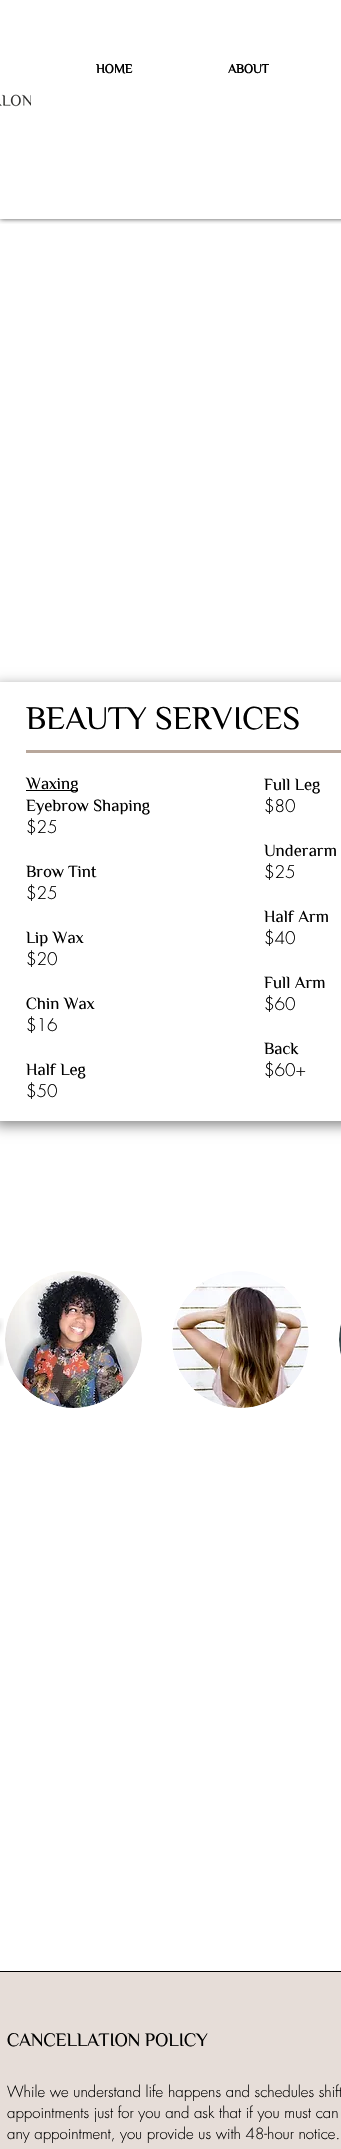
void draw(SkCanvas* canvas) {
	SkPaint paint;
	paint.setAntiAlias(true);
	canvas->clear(0xffffffff);
	canvas->save();
	canvas->clipRect(SkRect::MakeXYWH(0, 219, 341, 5));
	paint.setColor(0xb3000000);
	paint.setMaskFilter(SkMaskFilter::MakeBlur(kNormal_SkBlurStyle, 2.5));
	canvas->drawRect(SkRect::MakeXYWH(0, 0, 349, 219), paint);
	paint.setMaskFilter(nullptr);
	canvas->restore();
	SkFont f1(fontMgr->matchFamilyStyle("Philosopher", SkFontStyle::Bold()), 13);
	f1.setSubpixel(true);
	paint.setColor(0xff000000);
	canvas->drawString("HOME", 96, 73, f1, paint);
	canvas->drawString("ABOUT", 228, 73, f1, paint);
	canvas->drawImageRect(SkImages::DeferredFromEncodedData(SkData::MakeFromFileName("img1.png")), SkRect::MakeXYWH(0, 94, 31, 13), SkSamplingOptions());
	paint.setColor(0x7d000000);
	paint.setMaskFilter(SkMaskFilter::MakeBlur(kNormal_SkBlurStyle, 6.5));
	canvas->drawRect(SkRect::MakeXYWH(-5, 686, 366, 439), paint);
	paint.setMaskFilter(nullptr);
	paint.setColor(0xffffffff);
	canvas->drawRect(SkRect::MakeXYWH(0, 682, 341, 439), paint);
	SkFont f2(fontMgr->matchFamilyStyle("Philosopher", SkFontStyle::Normal()), 33);
	f2.setSubpixel(true);
	paint.setColor(0xff000000);
	canvas->drawString("BEAUTY SERVICES", 26, 729, f2, paint);
	paint.setColor(0xffb8a79b);
	canvas->drawRect(SkRect::MakeXYWH(26, 750, 315, 3), paint);
	paint.setColor(0xff000000);
	canvas->drawRect(SkRect::MakeXYWH(26, 790, 52, 1), paint);
	SkFont f3(fontMgr->matchFamilyStyle("Philosopher", SkFontStyle::Normal()), 17);
	f3.setSubpixel(true);
	canvas->drawString("Waxing", 26, 789, f3, paint);
	canvas->drawString("Eyebrow Shaping", 26, 811, f3, paint);
	SkFont f4(fontMgr->matchFamilyStyle("futura", SkFontStyle(300, SkFontStyle::kNormal_Width, SkFontStyle::kUpright_Slant)), 17);
	f4.setSubpixel(true);
	canvas->drawString("$25", 26, 833, f4, paint);
	canvas->drawString("Brow Tint", 26, 877, f3, paint);
	canvas->drawString("$25", 26, 899, f4, paint);
	canvas->drawString("Lip Wax", 26, 943, f3, paint);
	canvas->drawString("$20", 26, 965, f4, paint);
	canvas->drawString("Chin Wax", 26, 1009, f3, paint);
	canvas->drawString("$16", 26, 1031, f4, paint);
	canvas->drawString("Half Leg", 26, 1075, f3, paint);
	canvas->drawString("$50", 26, 1097, f4, paint);
	canvas->drawString("Full Leg", 264, 790, f3, paint);
	canvas->drawString("$80", 264, 812, f4, paint);
	canvas->drawString("Underarm", 264, 856, f3, paint);
	canvas->drawString("$25", 264, 878, f4, paint);
	canvas->drawString("Half Arm", 264, 922, f3, paint);
	canvas->drawString("$40", 264, 944, f4, paint);
	canvas->drawString("Full Arm", 264, 988, f3, paint);
	canvas->drawString("$60", 264, 1010, f4, paint);
	canvas->drawString("Back", 264, 1054, f3, paint);
	canvas->drawString("$60+", 264, 1076, f4, paint);
	canvas->drawImageRect(SkImages::DeferredFromEncodedData(SkData::MakeFromFileName("img2.png")), SkRect::MakeXYWH(0, 1318, 4, 48), SkSamplingOptions());
	canvas->drawImageRect(SkImages::DeferredFromEncodedData(SkData::MakeFromFileName("img3.png")), SkRect::MakeXYWH(5, 1271, 137, 137), SkSamplingOptions());
	canvas->drawImageRect(SkImages::DeferredFromEncodedData(SkData::MakeFromFileName("img4.png")), SkRect::MakeXYWH(172, 1271, 137, 137), SkSamplingOptions());
	canvas->drawImageRect(SkImages::DeferredFromEncodedData(SkData::MakeFromFileName("img5.png")), SkRect::MakeXYWH(339, 1324, 2, 31), SkSamplingOptions());
	paint.setColor(0xffe6ddd8);
	canvas->drawRect(SkRect::MakeXYWH(0, 1972, 341, 177), paint);
	paint.setColor(0xff000000);
	canvas->drawRect(SkRect::MakeXYWH(0, 1971, 341, 1), paint);
	SkFont f5(fontMgr->matchFamilyStyle("Philosopher", SkFontStyle::Normal()), 19);
	f5.setSubpixel(true);
	canvas->drawString("CANCELLATION POLICY", 7, 2046, f5, paint);
	SkFont f6(fontMgr->matchFamilyStyle("futura", SkFontStyle(300, SkFontStyle::kNormal_Width, SkFontStyle::kUpright_Slant)), 15);
	f6.setSubpixel(true);
	canvas->drawString("While we understand life happens and schedules shift", 7, 2097, f6, paint);
	canvas->drawString("appointments just for you and ask that if you must can", 7, 2118, f6, paint);
	canvas->drawString("any appointment, you provide us with 48-hour notice.", 7, 2139, f6, paint);
}
